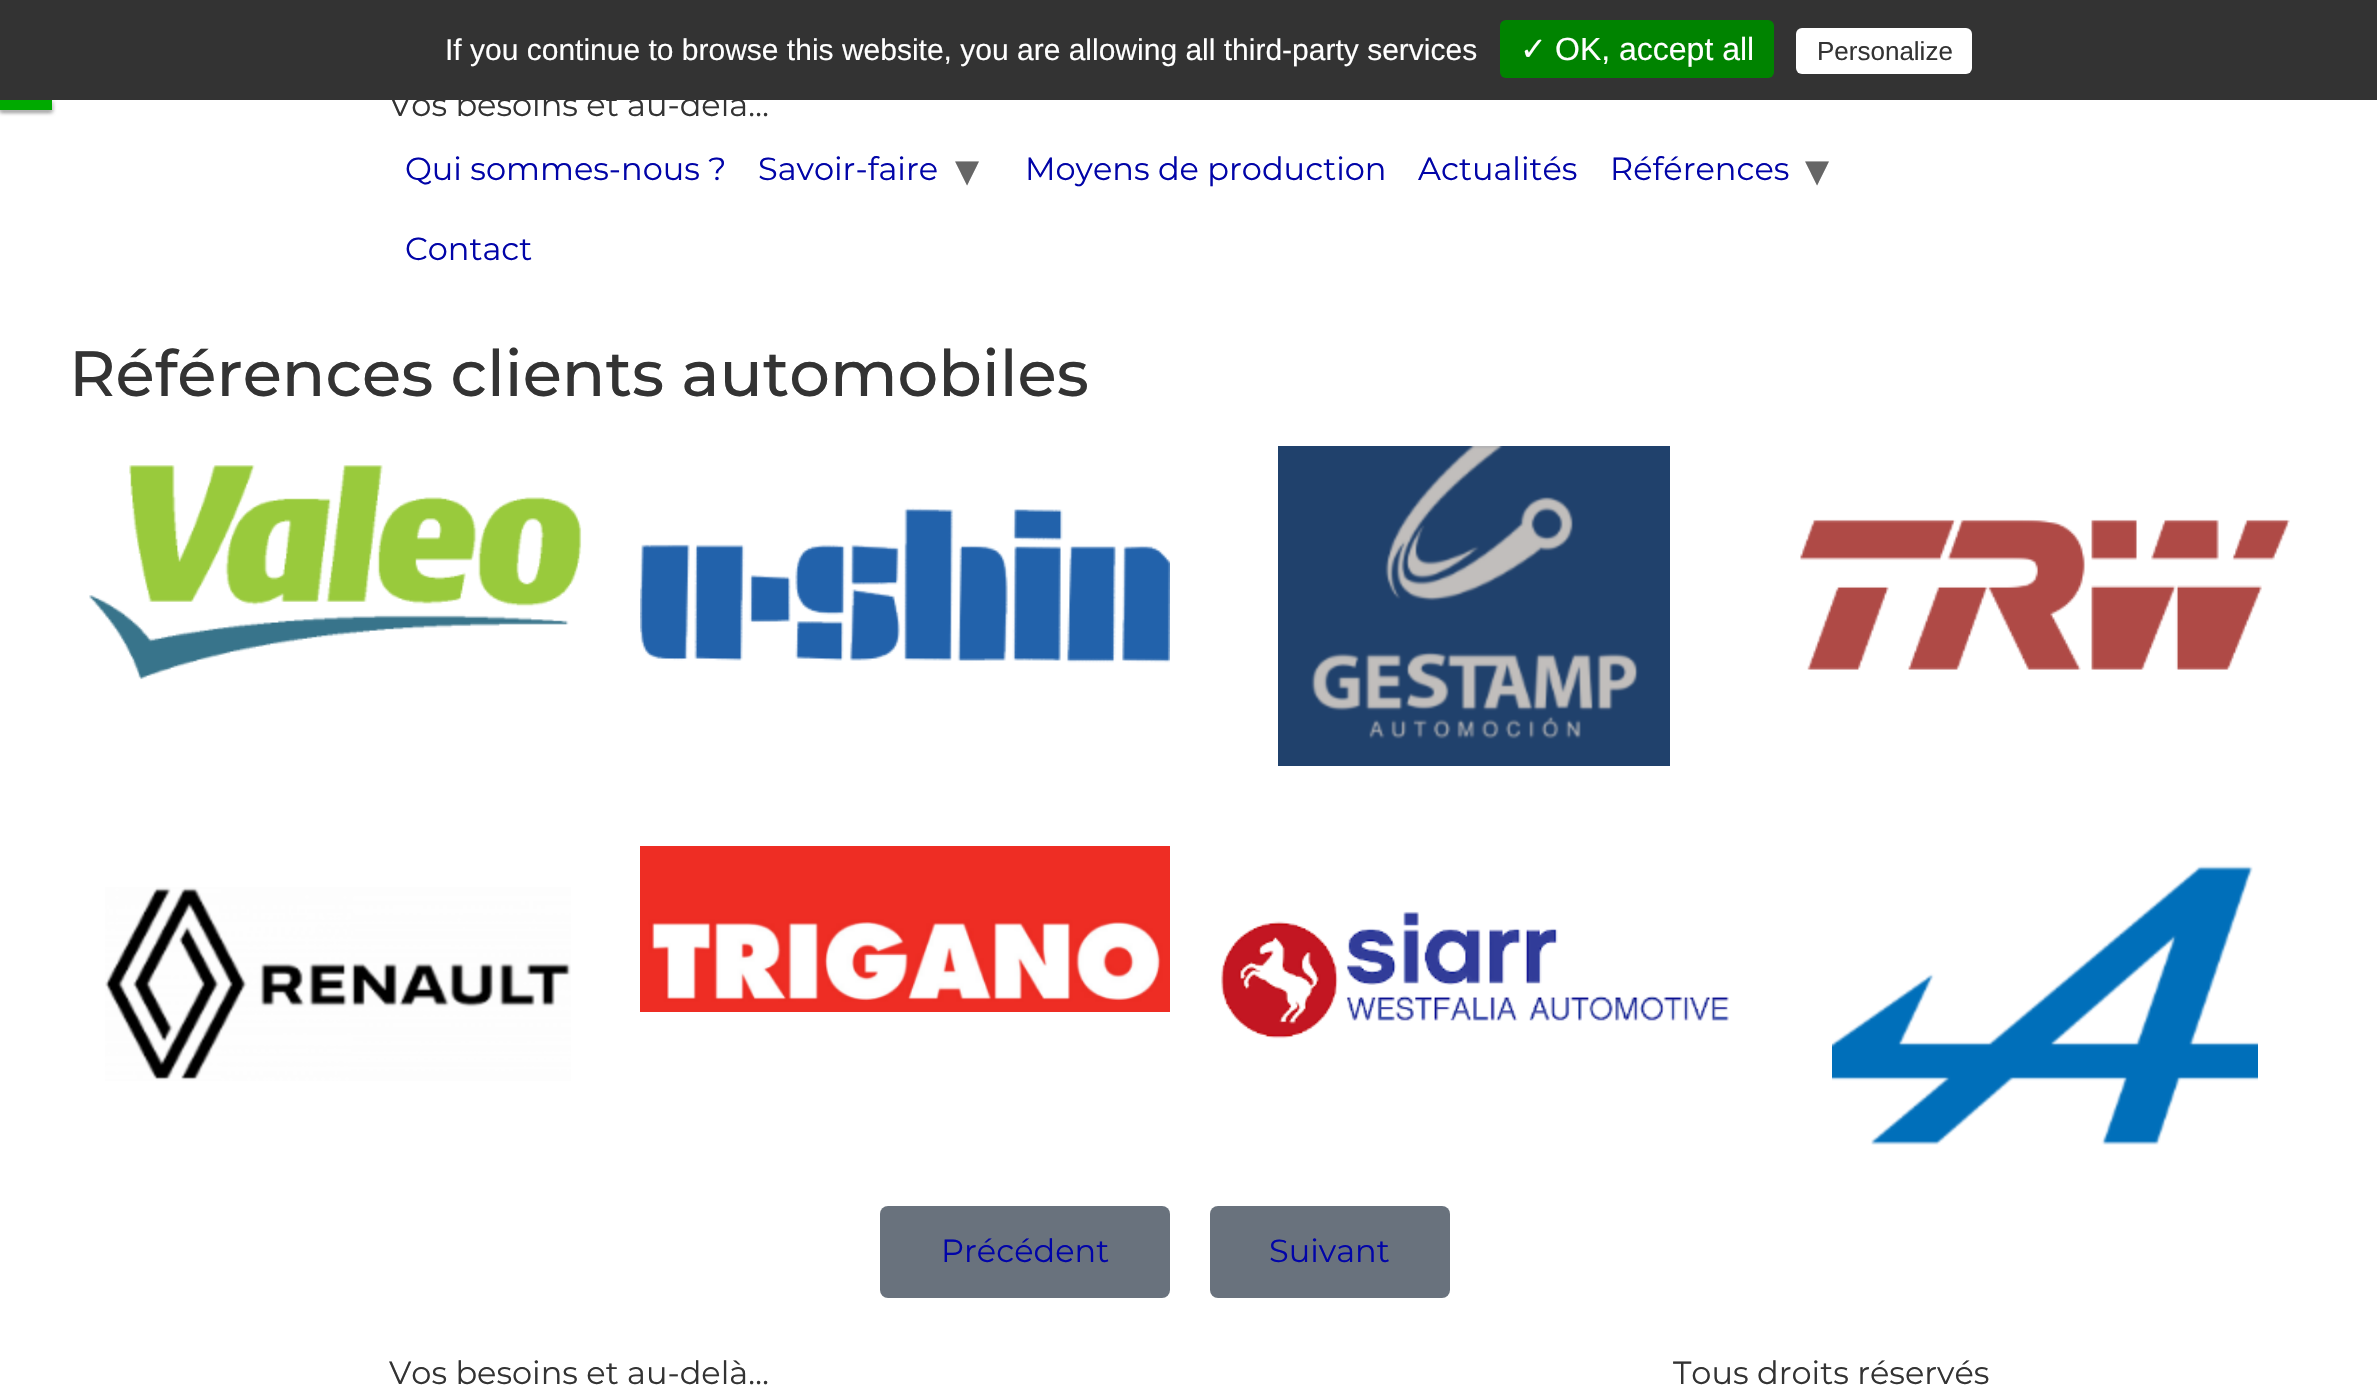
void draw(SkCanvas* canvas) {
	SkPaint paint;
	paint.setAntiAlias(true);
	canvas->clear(0xffffffff);
	paint.setColor(0xff555555);
	paint.setMaskFilter(SkMaskFilter::MakeBlur(kNormal_SkBlurStyle, 2));
	canvas->drawRect(SkRect::MakeXYWH(0, 102, 52, 10), paint);
	paint.setMaskFilter(nullptr);
	paint.setColor(0xffffffff);
	paint.setMaskFilter(SkMaskFilter::MakeBlur(kNormal_SkBlurStyle, 2));
	canvas->drawRect(SkRect::MakeXYWH(0, 100, 52, 10), paint);
	paint.setMaskFilter(nullptr);
	paint.setColor(0xff333333);
	canvas->drawRect(SkRect::MakeXYWH(0, 0, 2377, 100), paint);
	SkFont f1(fontMgr->matchFamilyStyle("Liberation Sans", SkFontStyle::Normal()), 30);
	f1.setSubpixel(true);
	paint.setColor(0xffffffff);
	canvas->drawString("If you continue to browse this website, you are allowing all third-party services", 445, 60, f1, paint);
	paint.setColor(0xff008300);
	canvas->drawRoundRect(SkRect::MakeXYWH(1500, 20, 274, 58), 6, 6, paint);
	SkFont f2(fontMgr->matchFamilyStyle("DejaVu Sans", SkFontStyle::Normal()), 32);
	f2.setSubpixel(true);
	paint.setColor(0xffffffff);
	canvas->drawString("✓", 1520, 60, f2, paint);
	SkFont f3(fontMgr->matchFamilyStyle("Liberation Sans", SkFontStyle::Normal()), 32);
	f3.setSubpixel(true);
	canvas->drawString("OK, accept all", 1555, 60, f3, paint);
	canvas->drawRoundRect(SkRect::MakeXYWH(1796, 28, 176, 46), 6, 6, paint);
	SkFont f4(fontMgr->matchFamilyStyle("Liberation Sans", SkFontStyle::Normal()), 26);
	f4.setSubpixel(true);
	paint.setColor(0xff333333);
	canvas->drawString("Personalize", 1817, 60, f4, paint);
	paint.setColor(0xff00aa00);
	canvas->drawRect(SkRect::MakeXYWH(0, 100, 52, 10), paint);
	SkFont f5(fontMgr->matchFamilyStyle("Montserrat", SkFontStyle::Normal()), 32);
	f5.setSubpixel(true);
	paint.setColor(0xff333333);
	canvas->drawString("Vos besoins et au-delà…", 389, 116, f5, paint);
	paint.setColor(0xff0104a8);
	canvas->drawString("Qui sommes-nous ?", 405, 180, f5, paint);
	canvas->drawString("Savoir-faire", 758, 180, f5, paint);
	SkFont f6(fontMgr->matchFamilyStyle("DejaVu Sans", SkFontStyle::Normal()), 48);
	f6.setSubpixel(true);
	paint.setColor(0xff666666);
	canvas->drawString("▾", 955, 186, f6, paint);
	paint.setColor(0xff0104a8);
	canvas->drawString("Moyens de production", 1025, 180, f5, paint);
	canvas->drawString("Actualités", 1418, 180, f5, paint);
	canvas->drawString("Références", 1610, 180, f5, paint);
	paint.setColor(0xff666666);
	canvas->drawString("▾", 1805, 186, f6, paint);
	paint.setColor(0xff0104a8);
	canvas->drawString("Contact", 405, 260, f5, paint);
	SkFont f7(fontMgr->matchFamilyStyle("Montserrat", SkFontStyle(500, SkFontStyle::kNormal_Width, SkFontStyle::kUpright_Slant)), 64);
	f7.setSubpixel(true);
	paint.setColor(0xff333333);
	canvas->drawString("Références clients automobiles", 69, 396, f7, paint);
	canvas->drawImageRect(SkImages::DeferredFromEncodedData(SkData::MakeFromFileName("img1.png")), SkRect::MakeXYWH(89, 465, 493, 215), SkSamplingOptions());
	canvas->drawImageRect(SkImages::DeferredFromEncodedData(SkData::MakeFromFileName("img2.png")), SkRect::MakeXYWH(640, 507, 530, 156), SkSamplingOptions());
	canvas->drawImageRect(SkImages::DeferredFromEncodedData(SkData::MakeFromFileName("img3.png")), SkRect::MakeXYWH(1278, 446, 392, 320), SkSamplingOptions());
	canvas->drawImageRect(SkImages::DeferredFromEncodedData(SkData::MakeFromFileName("img4.png")), SkRect::MakeXYWH(1800, 519, 490, 151), SkSamplingOptions());
	canvas->drawImageRect(SkImages::DeferredFromEncodedData(SkData::MakeFromFileName("img5.png")), SkRect::MakeXYWH(105, 887, 466, 194), SkSamplingOptions());
	canvas->drawImageRect(SkImages::DeferredFromEncodedData(SkData::MakeFromFileName("img6.png")), SkRect::MakeXYWH(640, 846, 530, 166), SkSamplingOptions());
	canvas->drawImageRect(SkImages::DeferredFromEncodedData(SkData::MakeFromFileName("img7.png")), SkRect::MakeXYWH(1221, 911, 508, 128), SkSamplingOptions());
	canvas->drawImageRect(SkImages::DeferredFromEncodedData(SkData::MakeFromFileName("img8.png")), SkRect::MakeXYWH(1832, 865, 426, 280), SkSamplingOptions());
	paint.setColor(0xff69727d);
	canvas->drawRoundRect(SkRect::MakeXYWH(880, 1206, 290, 92), 8, 8, paint);
	paint.setColor(0xff0104a8);
	canvas->drawString("Précédent", 941, 1262, f5, paint);
	paint.setColor(0xff69727d);
	canvas->drawRoundRect(SkRect::MakeXYWH(1210, 1206, 240, 92), 8, 8, paint);
	paint.setColor(0xff0104a8);
	canvas->drawString("Suivant", 1269, 1262, f5, paint);
	paint.setColor(0xff333333);
	canvas->drawString("Vos besoins et au-delà…", 389, 1384, f5, paint);
	canvas->drawString("Tous droits réservés", 1673, 1384, f5, paint);
}
